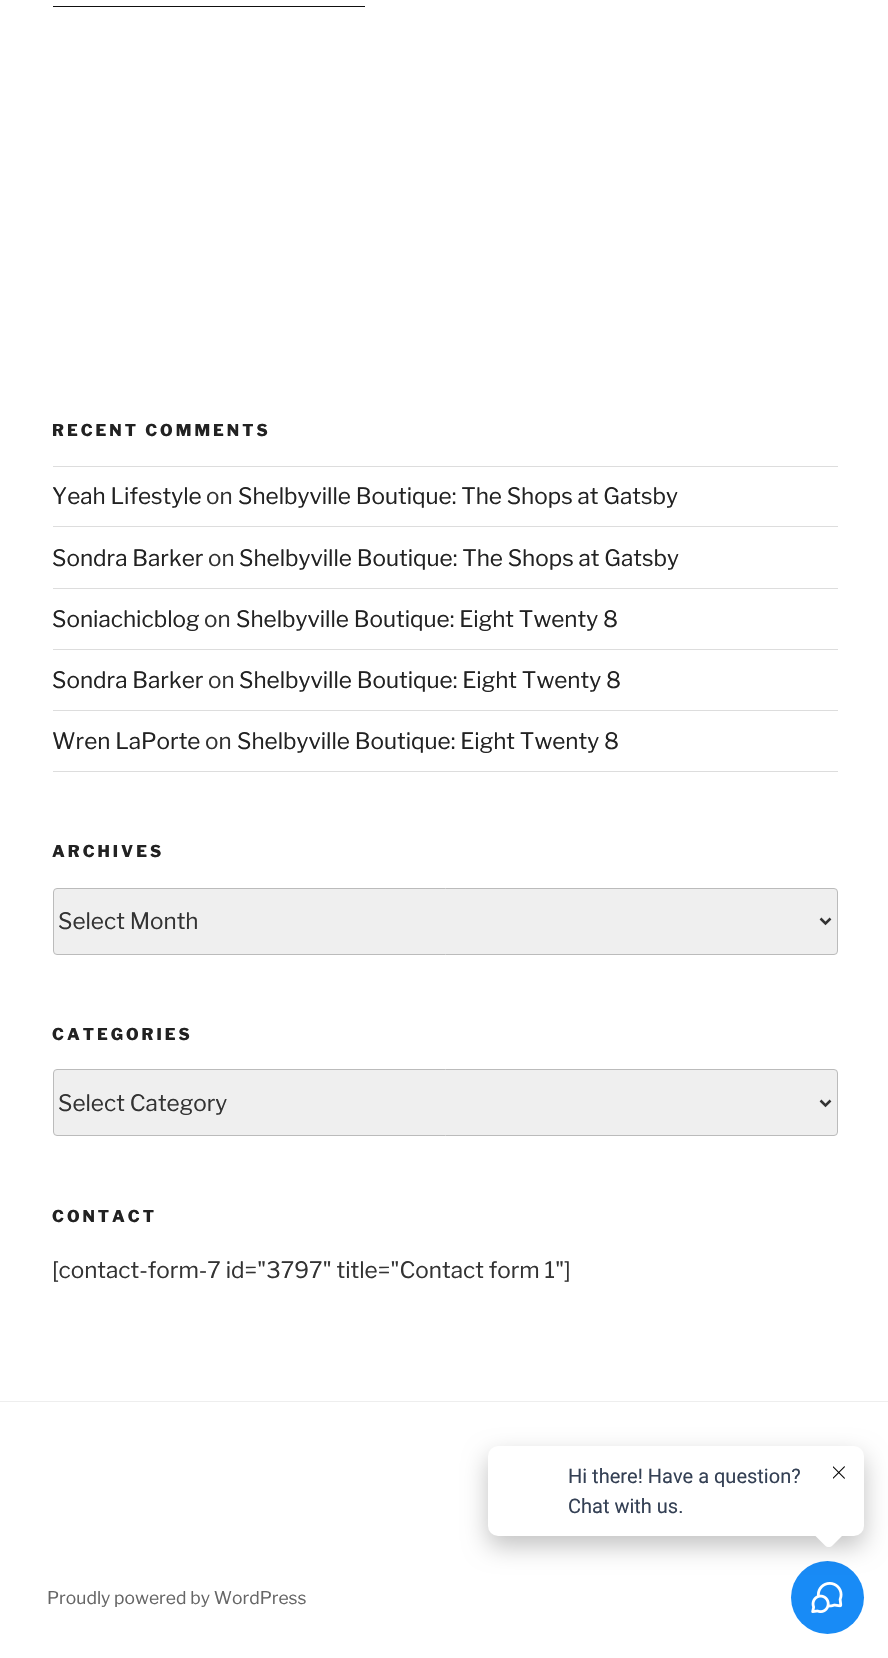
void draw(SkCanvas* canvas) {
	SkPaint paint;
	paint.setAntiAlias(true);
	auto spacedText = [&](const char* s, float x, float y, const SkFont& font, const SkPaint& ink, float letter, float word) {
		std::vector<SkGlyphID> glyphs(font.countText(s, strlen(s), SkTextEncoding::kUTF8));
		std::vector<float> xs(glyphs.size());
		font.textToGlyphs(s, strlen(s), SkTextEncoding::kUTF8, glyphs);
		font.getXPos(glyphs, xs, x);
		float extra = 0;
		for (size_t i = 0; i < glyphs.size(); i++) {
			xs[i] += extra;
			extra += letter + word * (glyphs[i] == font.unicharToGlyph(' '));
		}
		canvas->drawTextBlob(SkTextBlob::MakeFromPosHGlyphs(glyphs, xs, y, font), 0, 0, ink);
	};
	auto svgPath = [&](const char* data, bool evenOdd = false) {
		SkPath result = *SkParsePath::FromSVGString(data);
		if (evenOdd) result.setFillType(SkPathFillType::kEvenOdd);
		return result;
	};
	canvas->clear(0xffffffff);
	paint.setColor(0xff0f0f0f);
	canvas->drawRect(SkRect::MakeXYWH(53, 6, 312, 1), paint);
	SkFont f1(fontMgr->matchFamilyStyle("Libre Franklin", SkFontStyle(100, SkFontStyle::kNormal_Width, SkFontStyle::kUpright_Slant)), 16.25);
	f1.setSubpixel(true);
	paint.setColor(0xff222222);
	spacedText("RECENT COMMENTS", 52, 436, f1, paint, 3, 0);
	paint.setColor(0xffdddddd);
	canvas->drawRect(SkRect::MakeXYWH(53, 466, 785, 1), paint);
	canvas->drawRect(SkRect::MakeXYWH(53, 526, 785, 1), paint);
	SkFont f2(fontMgr->matchFamilyStyle("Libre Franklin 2", SkFontStyle(100, SkFontStyle::kNormal_Width, SkFontStyle::kUpright_Slant)), 22.5);
	f2.setSubpixel(true);
	paint.setColor(0xff222222);
	canvas->drawString("Yeah Lifestyle", 52, 504, f2, paint);
	paint.setColor(0xff333333);
	canvas->drawString("on", 206, 504, f2, paint);
	paint.setColor(0xff222222);
	canvas->drawString("Shelbyville Boutique: The Shops at Gatsby", 238, 504, f2, paint);
	paint.setColor(0xffdddddd);
	canvas->drawRect(SkRect::MakeXYWH(53, 588, 785, 1), paint);
	paint.setColor(0xff222222);
	canvas->drawString("Sondra Barker", 52, 566, f2, paint);
	paint.setColor(0xff333333);
	canvas->drawString("on", 208, 566, f2, paint);
	paint.setColor(0xff222222);
	canvas->drawString("Shelbyville Boutique: The Shops at Gatsby", 239, 566, f2, paint);
	paint.setColor(0xffdddddd);
	canvas->drawRect(SkRect::MakeXYWH(53, 649, 785, 1), paint);
	paint.setColor(0xff222222);
	canvas->drawString("Soniachicblog", 52, 627, f2, paint);
	paint.setColor(0xff333333);
	canvas->drawString("on", 204, 627, f2, paint);
	paint.setColor(0xff222222);
	canvas->drawString("Shelbyville Boutique: Eight Twenty 8", 236, 627, f2, paint);
	paint.setColor(0xffdddddd);
	canvas->drawRect(SkRect::MakeXYWH(53, 710, 785, 1), paint);
	paint.setColor(0xff222222);
	canvas->drawString("Sondra Barker", 52, 688, f2, paint);
	paint.setColor(0xff333333);
	canvas->drawString("on", 208, 688, f2, paint);
	paint.setColor(0xff222222);
	canvas->drawString("Shelbyville Boutique: Eight Twenty 8", 239, 688, f2, paint);
	paint.setColor(0xffdddddd);
	canvas->drawRect(SkRect::MakeXYWH(53, 771, 785, 1), paint);
	paint.setColor(0xff222222);
	canvas->drawString("Wren LaPorte", 52, 749, f2, paint);
	paint.setColor(0xff333333);
	canvas->drawString("on", 205, 749, f2, paint);
	paint.setColor(0xff222222);
	canvas->drawString("Shelbyville Boutique: Eight Twenty 8", 237, 749, f2, paint);
	spacedText("ARCHIVES", 52, 857, f1, paint, 3, 0);
	paint.setColor(0xffefefef);
	canvas->drawRoundRect(SkRect::MakeXYWH(53.5, 888.5, 784, 66), 3.5, 3.5, paint);
	paint.setStroke(true);
	paint.setStrokeWidth(1);
	paint.setColor(0xffbbbbbb);
	canvas->drawRoundRect(SkRect::MakeXYWH(53.5, 888.5, 784, 66), 3.5, 3.5, paint);
	paint.setStrokeWidth(2.5);
	paint.setColor(0xff333333);
	canvas->drawPath(svgPath("M820.5 918.5L825.5 923.5L830.5 918.5"), paint);
	paint.setStroke(false);
	canvas->drawString("Select Month", 58, 929, f2, paint);
	paint.setColor(0xff222222);
	spacedText("CATEGORIES", 52, 1040, f1, paint, 3, 0);
	paint.setColor(0xffefefef);
	canvas->drawRoundRect(SkRect::MakeXYWH(53.5, 1069.5, 784, 66), 3.5, 3.5, paint);
	paint.setStroke(true);
	paint.setStrokeWidth(1);
	paint.setColor(0xffbbbbbb);
	canvas->drawRoundRect(SkRect::MakeXYWH(53.5, 1069.5, 784, 66), 3.5, 3.5, paint);
	paint.setStrokeWidth(2.5);
	paint.setColor(0xff333333);
	canvas->drawPath(svgPath("M820.5 1100.5L825.5 1105.5L830.5 1100.5"), paint);
	paint.setStroke(false);
	canvas->drawString("Select Category", 58, 1111, f2, paint);
	paint.setColor(0xff222222);
	spacedText("CONTACT", 52, 1222, f1, paint, 3, 0);
	paint.setColor(0xff333333);
	canvas->drawString("[contact-form-7 id=\"3797\" title=\"Contact form 1\"]", 52, 1278, f2, paint);
	paint.setColor(0xffeeeeee);
	canvas->drawRect(SkRect::MakeXYWH(0, 1401, 888, 1), paint);
	SkFont f3(fontMgr->matchFamilyStyle("Libre Franklin 2", SkFontStyle(100, SkFontStyle::kNormal_Width, SkFontStyle::kUpright_Slant)), 17.5);
	f3.setSubpixel(true);
	paint.setColor(0xff666666);
	canvas->drawString("Proudly powered by WordPress", 47, 1604, f3, paint);
	paint.setColor(0xff188bf6);
	canvas->drawCircle(827.5, 1597.5, 36.5, paint);
	canvas->drawImageRect(SkImages::DeferredFromEncodedData(SkData::MakeFromFileName("img2.png")), SkRect::MakeXYWH(811, 1582, 32, 31), SkSamplingOptions());
	paint.setColor(0x3d000000);
	paint.setMaskFilter(SkMaskFilter::MakeBlur(kNormal_SkBlurStyle, 12.5));
	canvas->drawRoundRect(SkRect::MakeXYWH(488, 1456, 376, 90), 10, 10, paint);
	paint.setMaskFilter(nullptr);
	paint.setColor(0xffffffff);
	canvas->drawRoundRect(SkRect::MakeXYWH(488, 1446, 376, 90), 10, 10, paint);
	SkFont f4(fontMgr->matchFamilyStyle("Roboto", SkFontStyle::Normal()), 20);
	f4.setSubpixel(true);
	paint.setColor(0xff344054);
	canvas->drawString("Hi there! Have a question?", 568, 1483, f4, paint);
	canvas->drawString("Chat with us.", 568, 1513, f4, paint);
	paint.setColor(0xffffffff);
	canvas->drawPath(svgPath("M832.5 1517L843 1527.5C845 1529.5 845 1533 843 1535L832.5 1545.5C830.5 1547.5 827 1547.5 825 1545.5L814.5 1535C812.5 1533 812.5 1529.5 814.5 1527.5L825 1517C827 1515 830.5 1515 832.5 1517Z"), paint);
	canvas->drawImageRect(SkImages::DeferredFromEncodedData(SkData::MakeFromFileName("img1.png")), SkRect::MakeXYWH(833, 1466, 12, 13), SkSamplingOptions());
}
